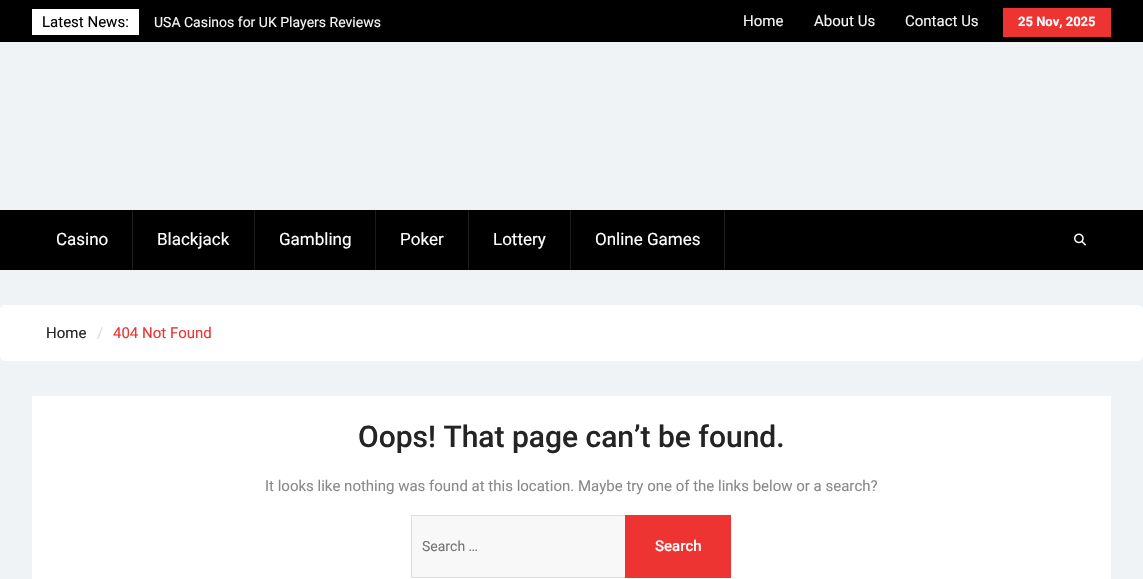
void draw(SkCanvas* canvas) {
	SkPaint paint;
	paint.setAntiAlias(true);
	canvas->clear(0xfff0f3f5);
	paint.setColor(0xff000000);
	canvas->drawRect(SkRect::MakeXYWH(0, 0, 1143, 42), paint);
	paint.setColor(0xffffffff);
	canvas->drawRect(SkRect::MakeXYWH(32, 9, 107, 26), paint);
	SkFont f1(fontMgr->matchFamilyStyle("Roboto", SkFontStyle::Normal()), 15);
	f1.setSubpixel(true);
	paint.setColor(0xff000000);
	canvas->drawString("Latest News:", 42, 27, f1, paint);
	SkFont f2(fontMgr->matchFamilyStyle("Roboto", SkFontStyle::Normal()), 14);
	f2.setSubpixel(true);
	paint.setColor(0xfff5f5f5);
	canvas->drawString("USA Casinos for UK Players Reviews", 154, 27, f2, paint);
	canvas->drawString("Home", 743, 26, f1, paint);
	canvas->drawString("About Us", 814, 26, f1, paint);
	canvas->drawString("Contact Us", 905, 26, f1, paint);
	paint.setColor(0xffee3333);
	canvas->drawRect(SkRect::MakeXYWH(1003, 8, 108, 29), paint);
	SkFont f3(fontMgr->matchFamilyStyle("Roboto", SkFontStyle::Bold()), 13);
	f3.setSubpixel(true);
	paint.setColor(0xffffffff);
	canvas->drawString("25 Nov, 2025", 1018, 26, f3, paint);
	paint.setColor(0xff000000);
	canvas->drawRect(SkRect::MakeXYWH(0, 210, 1143, 60), paint);
	paint.setColor(0xff1c1c1c);
	canvas->drawRect(SkRect::MakeXYWH(132, 210, 1, 60), paint);
	SkFont f4(fontMgr->matchFamilyStyle("Roboto", SkFontStyle::Normal()), 17);
	f4.setSubpixel(true);
	paint.setColor(0xffffffff);
	canvas->drawString("Casino", 56, 245, f4, paint);
	paint.setColor(0xff1c1c1c);
	canvas->drawRect(SkRect::MakeXYWH(254, 210, 1, 60), paint);
	paint.setColor(0xffffffff);
	canvas->drawString("Blackjack", 157, 245, f4, paint);
	paint.setColor(0xff1c1c1c);
	canvas->drawRect(SkRect::MakeXYWH(375, 210, 1, 60), paint);
	paint.setColor(0xffffffff);
	canvas->drawString("Gambling", 279, 245, f4, paint);
	paint.setColor(0xff1c1c1c);
	canvas->drawRect(SkRect::MakeXYWH(468, 210, 1, 60), paint);
	paint.setColor(0xffffffff);
	canvas->drawString("Poker", 400, 245, f4, paint);
	paint.setColor(0xff1c1c1c);
	canvas->drawRect(SkRect::MakeXYWH(570, 210, 1, 60), paint);
	paint.setColor(0xffffffff);
	canvas->drawString("Lottery", 493, 245, f4, paint);
	paint.setColor(0xff1c1c1c);
	canvas->drawRect(SkRect::MakeXYWH(724, 210, 1, 60), paint);
	paint.setColor(0xffffffff);
	canvas->drawString("Online Games", 595, 245, f4, paint);
	canvas->drawImageRect(SkImages::DeferredFromEncodedData(SkData::MakeFromFileName("img1.png")), SkRect::MakeXYWH(1074, 233, 12, 13), SkSamplingOptions());
	canvas->drawRoundRect(SkRect::MakeXYWH(0, 305, 1143, 56), 5, 5, paint);
	paint.setColor(0xff242424);
	canvas->drawString("Home", 46, 338, f1, paint);
	paint.setColor(0xffdddddd);
	canvas->drawString("/", 97, 338, f1, paint);
	paint.setColor(0xffee3333);
	canvas->drawString("404 Not Found", 113, 338, f1, paint);
	paint.setColor(0xffffffff);
	canvas->drawRect(SkRect::MakeXYWH(32, 396, 1079, 183), paint);
	SkFont f5(fontMgr->matchFamilyStyle("Roboto", SkFontStyle(500, SkFontStyle::kNormal_Width, SkFontStyle::kUpright_Slant)), 30);
	f5.setSubpixel(true);
	paint.setColor(0xff242424);
	canvas->drawString("Oops! That page can’t be found.", 358, 447, f5, paint);
	paint.setColor(0xff88898a);
	canvas->drawString("It looks like nothing was found at this location. Maybe try one of the links below or a search?", 265, 491, f1, paint);
	paint.setColor(0xfff8f8f8);
	canvas->drawRect(SkRect::MakeXYWH(412, 516, 213, 61), paint);
	paint.setStroke(true);
	paint.setStrokeWidth(1);
	paint.setColor(0xffdddddd);
	canvas->drawRect(SkRect::MakeXYWH(411.5, 515.5, 319, 62), paint);
	paint.setStroke(false);
	paint.setColor(0xff757575);
	canvas->drawString("Search …", 422, 551, f2, paint);
	paint.setColor(0xffee3333);
	canvas->drawRect(SkRect::MakeXYWH(625, 515, 106, 63), paint);
	SkFont f6(fontMgr->matchFamilyStyle("Roboto", SkFontStyle(500, SkFontStyle::kNormal_Width, SkFontStyle::kUpright_Slant)), 15);
	f6.setSubpixel(true);
	paint.setColor(0xffffffff);
	canvas->drawString("Search", 655, 551, f6, paint);
}
